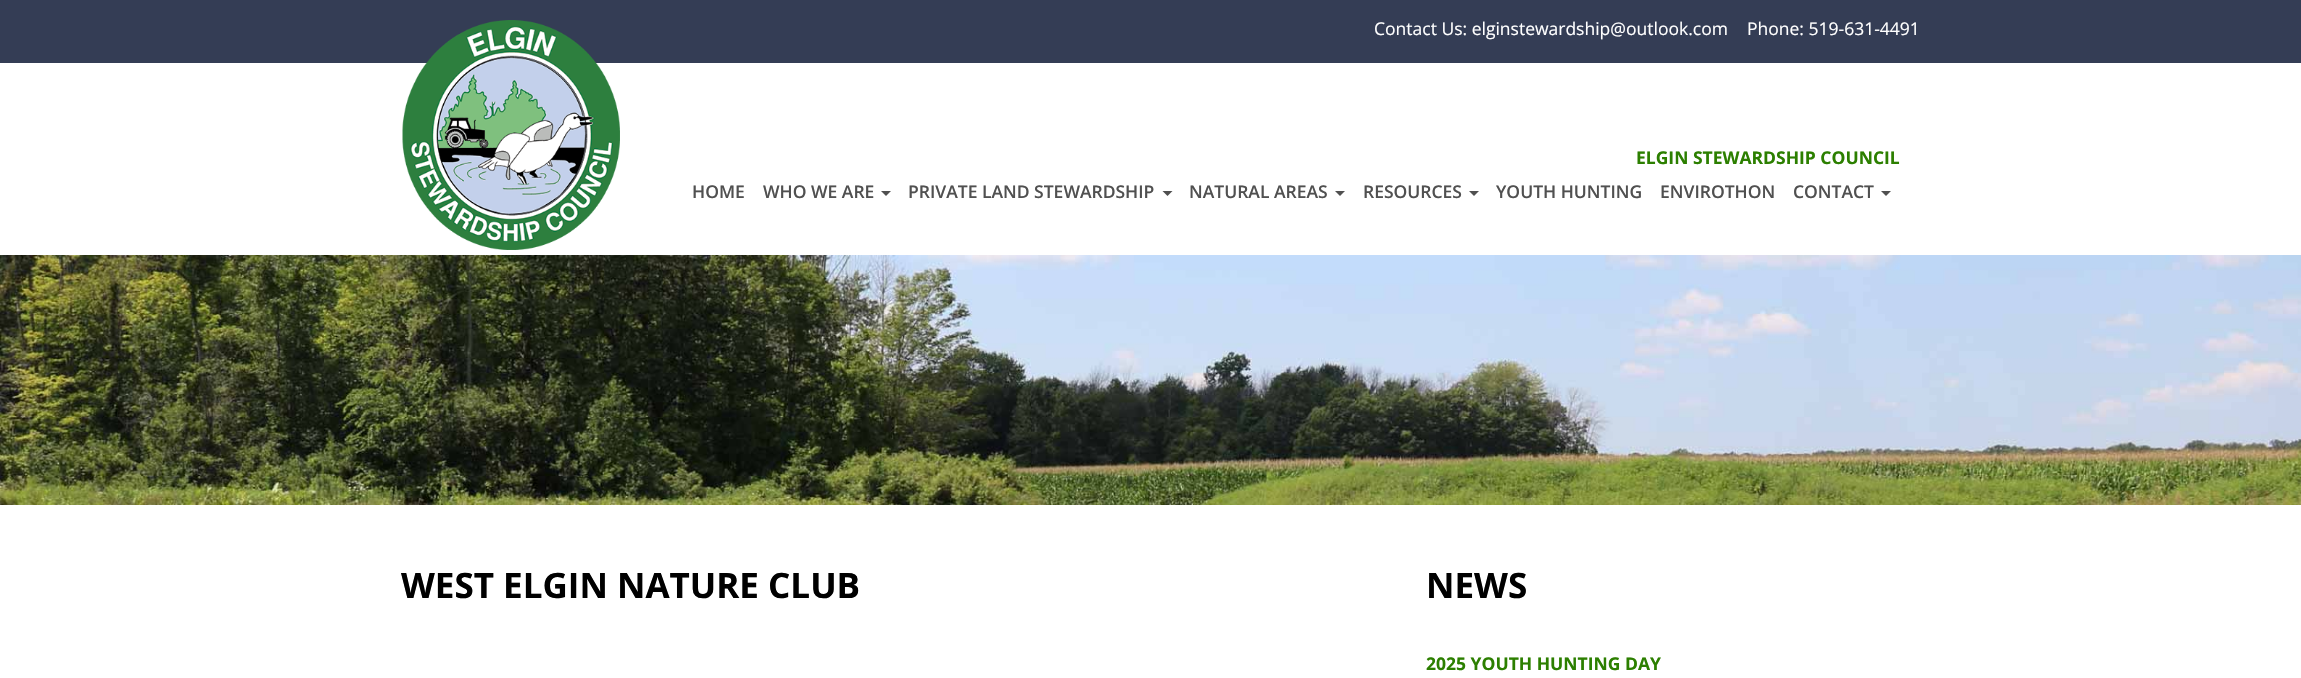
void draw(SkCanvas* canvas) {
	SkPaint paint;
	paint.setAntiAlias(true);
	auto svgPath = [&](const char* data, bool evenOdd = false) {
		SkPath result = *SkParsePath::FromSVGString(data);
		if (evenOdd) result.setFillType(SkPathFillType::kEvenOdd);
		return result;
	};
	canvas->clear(0xffffffff);
	paint.setColor(0xff343d55);
	canvas->drawRect(SkRect::MakeXYWH(0, 0, 2301, 63), paint);
	SkFont f1(fontMgr->matchFamilyStyle("Open Sans", SkFontStyle::Normal()), 17.5);
	f1.setSubpixel(true);
	paint.setColor(0xffffffff);
	canvas->drawString("Contact Us: elginstewardship@outlook.com", 1374, 35, f1, paint);
	canvas->drawString("Phone: 519-631-4491", 1747, 35, f1, paint);
	canvas->drawImageRect(SkImages::DeferredFromEncodedData(SkData::MakeFromFileName("img1.png")), SkRect::MakeXYWH(402, 20, 218, 230), SkSamplingOptions());
	SkFont f2(fontMgr->matchFamilyStyle("Open Sans", SkFontStyle::Bold()), 17.5);
	f2.setSubpixel(true);
	paint.setColor(0xff2c7f00);
	canvas->drawString("ELGIN STEWARDSHIP COUNCIL", 1636, 164, f2, paint);
	SkFont f3(fontMgr->matchFamilyStyle("Open Sans", SkFontStyle(600, SkFontStyle::kNormal_Width, SkFontStyle::kUpright_Slant)), 17.5);
	f3.setSubpixel(true);
	paint.setColor(0xff505050);
	canvas->drawString("HOME", 692, 198, f3, paint);
	canvas->drawString("WHO WE ARE", 763, 198, f3, paint);
	canvas->drawPath(svgPath("M881 191H891L886 196Z"), paint);
	canvas->drawString("PRIVATE LAND STEWARDSHIP", 908, 198, f3, paint);
	canvas->drawPath(svgPath("M1162.5 191H1172.5L1167.5 196Z"), paint);
	canvas->drawString("NATURAL AREAS", 1189, 198, f3, paint);
	canvas->drawPath(svgPath("M1335 191H1345L1340 196Z"), paint);
	canvas->drawString("RESOURCES", 1363, 198, f3, paint);
	canvas->drawPath(svgPath("M1469 191H1479L1474 196Z"), paint);
	canvas->drawString("YOUTH HUNTING", 1496, 198, f3, paint);
	canvas->drawString("ENVIROTHON", 1660, 198, f3, paint);
	canvas->drawString("CONTACT", 1793, 198, f3, paint);
	canvas->drawPath(svgPath("M1881 191H1891L1886 196Z"), paint);
	canvas->drawImageRect(SkImages::DeferredFromEncodedData(SkData::MakeFromFileName("img2.png")), SkRect::MakeXYWH(0, 255, 2301, 250), SkSamplingOptions());
	SkFont f4(fontMgr->matchFamilyStyle("Open Sans", SkFontStyle::Bold()), 35);
	f4.setSubpixel(true);
	paint.setColor(0xff000000);
	canvas->drawString("WEST ELGIN NATURE CLUB", 401, 598, f4, paint);
	canvas->drawString("NEWS", 1426, 598, f4, paint);
	paint.setColor(0xff2c7f00);
	canvas->drawString("2025 YOUTH HUNTING DAY", 1426, 670, f2, paint);
}
